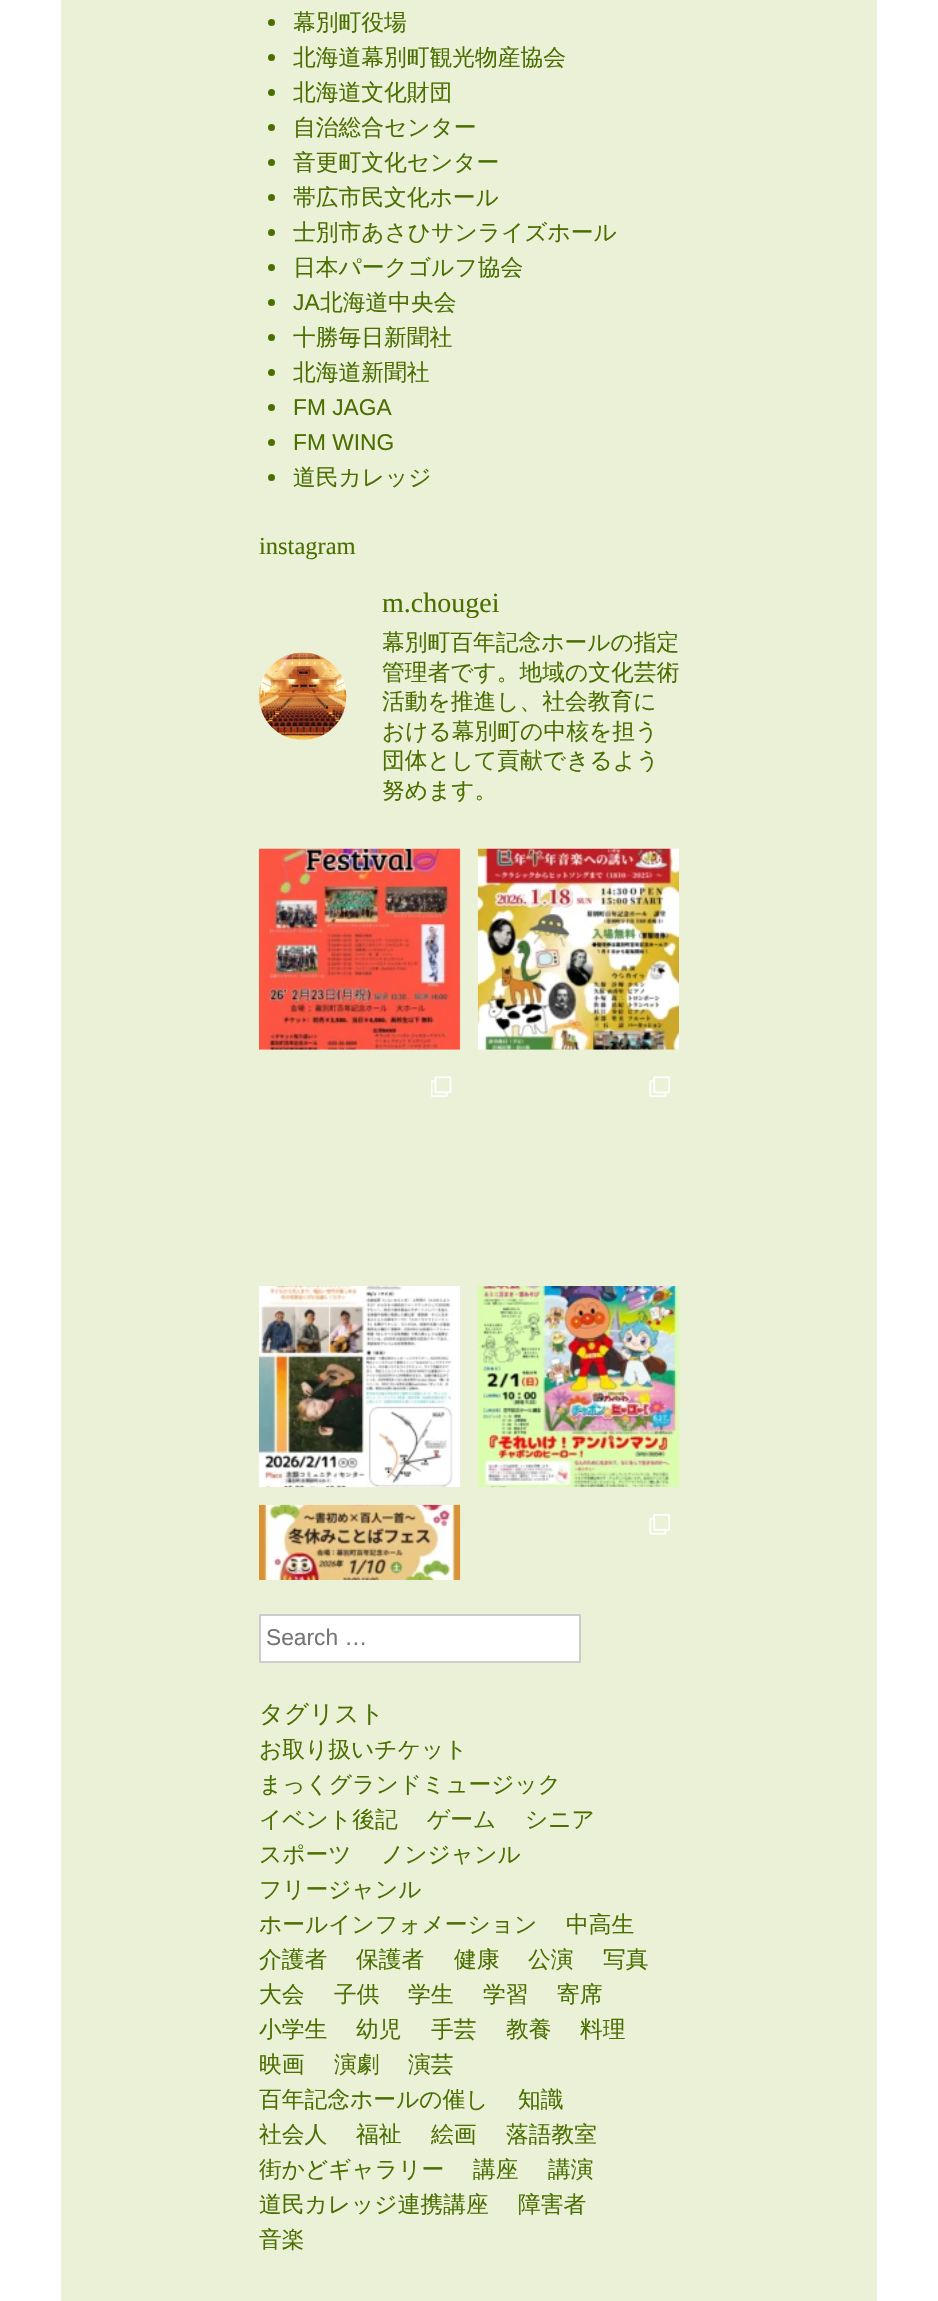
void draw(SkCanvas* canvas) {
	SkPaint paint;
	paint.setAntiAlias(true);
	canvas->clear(0xffffffff);
	paint.setColor(0xffebf1d7);
	canvas->drawRect(SkRect::MakeXYWH(61, 0, 816, 2301), paint);
	paint.setColor(0xff4a6f00);
	canvas->drawCircle(271.5, 22.5, 3.5, paint);
	SkFont f1(fontMgr->matchFamilyStyle("WenQuanYi Zen Hei", SkFontStyle(500, SkFontStyle::kNormal_Width, SkFontStyle::kUpright_Slant)), 22.75);
	f1.setSubpixel(true);
	canvas->drawString("幕別町役場", 293, 30, f1, paint);
	canvas->drawCircle(271.5, 57.5, 3.5, paint);
	canvas->drawString("北海道幕別町観光物産協会", 293, 65, f1, paint);
	canvas->drawCircle(271.5, 92.5, 3.5, paint);
	canvas->drawString("北海道文化財団", 293, 100, f1, paint);
	canvas->drawCircle(271.5, 127.5, 3.5, paint);
	canvas->drawString("自治総合センター", 293, 135, f1, paint);
	canvas->drawCircle(271.5, 162.5, 3.5, paint);
	canvas->drawString("音更町文化センター", 293, 170, f1, paint);
	canvas->drawCircle(271.5, 197.5, 3.5, paint);
	canvas->drawString("帯広市民文化ホール", 293, 205, f1, paint);
	canvas->drawCircle(271.5, 232.5, 3.5, paint);
	canvas->drawString("士別市あさひサンライズホール", 293, 240, f1, paint);
	canvas->drawCircle(271.5, 267.5, 3.5, paint);
	canvas->drawString("日本パークゴルフ協会", 293, 275, f1, paint);
	canvas->drawCircle(271.5, 302.5, 3.5, paint);
	SkFont f2(fontMgr->matchFamilyStyle("Liberation Sans", SkFontStyle::Normal()), 22.75);
	f2.setSubpixel(true);
	canvas->drawString("JA", 293, 310, f2, paint);
	canvas->drawString("北海道中央会", 320, 310, f1, paint);
	canvas->drawCircle(271.5, 337.5, 3.5, paint);
	canvas->drawString("十勝毎日新聞社", 293, 345, f1, paint);
	canvas->drawCircle(271.5, 372.5, 3.5, paint);
	canvas->drawString("北海道新聞社", 293, 380, f1, paint);
	canvas->drawCircle(271.5, 407.5, 3.5, paint);
	canvas->drawString("FM JAGA", 293, 415, f2, paint);
	canvas->drawCircle(271.5, 442.5, 3.5, paint);
	canvas->drawString("FM WING", 293, 450, f2, paint);
	canvas->drawCircle(271.5, 477.5, 3.5, paint);
	canvas->drawString("道民カレッジ", 293, 485, f1, paint);
	SkFont f3(fontMgr->matchFamilyStyle("Liberation Serif", SkFontStyle::Normal()), 24.5);
	f3.setSubpixel(true);
	canvas->drawString("instagram", 259, 554, f3, paint);
	canvas->drawImageRect(SkImages::DeferredFromEncodedData(SkData::MakeFromFileName("img1.png")), SkRect::MakeXYWH(259, 652, 88, 88), SkSamplingOptions());
	SkFont f4(fontMgr->matchFamilyStyle("Liberation Serif", SkFontStyle::Normal()), 28);
	f4.setSubpixel(true);
	canvas->drawString("m.chougei", 382, 612, f4, paint);
	canvas->drawString("幕別町百年記念ホールの指定", 382, 650, f1, paint);
	canvas->drawString("管理者です。地域の文化芸術", 382, 680, f1, paint);
	canvas->drawString("活動を推進し、社会教育に", 382, 709, f1, paint);
	canvas->drawString("おける幕別町の中核を担う", 382, 739, f1, paint);
	canvas->drawString("団体として貢献できるよう", 382, 768, f1, paint);
	canvas->drawString("努めます。", 382, 798, f1, paint);
	canvas->drawImageRect(SkImages::DeferredFromEncodedData(SkData::MakeFromFileName("img2.png")), SkRect::MakeXYWH(259, 848, 202, 202), SkSamplingOptions());
	canvas->drawImageRect(SkImages::DeferredFromEncodedData(SkData::MakeFromFileName("img3.png")), SkRect::MakeXYWH(477, 848, 202, 202), SkSamplingOptions());
	canvas->drawImageRect(SkImages::DeferredFromEncodedData(SkData::MakeFromFileName("img4.png")), SkRect::MakeXYWH(431, 1076, 21, 21), SkSamplingOptions());
	canvas->drawImageRect(SkImages::DeferredFromEncodedData(SkData::MakeFromFileName("img5.png")), SkRect::MakeXYWH(649, 1076, 21, 21), SkSamplingOptions());
	canvas->drawImageRect(SkImages::DeferredFromEncodedData(SkData::MakeFromFileName("img6.png")), SkRect::MakeXYWH(259, 1286, 201, 202), SkSamplingOptions());
	canvas->drawImageRect(SkImages::DeferredFromEncodedData(SkData::MakeFromFileName("img7.png")), SkRect::MakeXYWH(478, 1286, 201, 202), SkSamplingOptions());
	canvas->drawImageRect(SkImages::DeferredFromEncodedData(SkData::MakeFromFileName("img8.png")), SkRect::MakeXYWH(259, 1504, 202, 76), SkSamplingOptions());
	canvas->drawImageRect(SkImages::DeferredFromEncodedData(SkData::MakeFromFileName("img9.png")), SkRect::MakeXYWH(649, 1514, 21, 21), SkSamplingOptions());
	paint.setColor(0xffffffff);
	canvas->drawRect(SkRect::MakeXYWH(260, 1615, 320, 47), paint);
	paint.setStroke(true);
	paint.setStrokeWidth(2);
	paint.setColor(0xffcccccc);
	canvas->drawRect(SkRect::MakeXYWH(260, 1615, 320, 47), paint);
	paint.setStroke(false);
	paint.setColor(0xff757575);
	canvas->drawString("Search …", 266, 1645, f2, paint);
	SkFont f5(fontMgr->matchFamilyStyle("WenQuanYi Zen Hei", SkFontStyle(500, SkFontStyle::kNormal_Width, SkFontStyle::kUpright_Slant)), 24.5);
	f5.setSubpixel(true);
	paint.setColor(0xff4a6f00);
	canvas->drawString("タグリスト", 259, 1722, f5, paint);
	canvas->drawString("お取り扱いチケット", 259, 1757, f1, paint);
	canvas->drawString("まっくグランドミュージック", 259, 1792, f1, paint);
	canvas->drawString("イベント後記", 259, 1827, f1, paint);
	canvas->drawString("ゲーム", 427, 1827, f1, paint);
	canvas->drawString("シニア", 525, 1827, f1, paint);
	canvas->drawString("スポーツ", 259, 1862, f1, paint);
	canvas->drawString("ノンジャンル", 381, 1862, f1, paint);
	canvas->drawString("フリージャンル", 259, 1897, f1, paint);
	canvas->drawString("ホールインフォメーション", 259, 1932, f1, paint);
	canvas->drawString("中高生", 566, 1932, f1, paint);
	canvas->drawString("介護者", 259, 1967, f1, paint);
	canvas->drawString("保護者", 356, 1967, f1, paint);
	canvas->drawString("健康", 454, 1967, f1, paint);
	canvas->drawString("公演", 528, 1967, f1, paint);
	canvas->drawString("写真", 603, 1967, f1, paint);
	canvas->drawString("大会", 259, 2002, f1, paint);
	canvas->drawString("子供", 334, 2002, f1, paint);
	canvas->drawString("学生", 408, 2002, f1, paint);
	canvas->drawString("学習", 483, 2002, f1, paint);
	canvas->drawString("寄席", 557, 2002, f1, paint);
	canvas->drawString("小学生", 259, 2037, f1, paint);
	canvas->drawString("幼児", 356, 2037, f1, paint);
	canvas->drawString("手芸", 431, 2037, f1, paint);
	canvas->drawString("教養", 506, 2037, f1, paint);
	canvas->drawString("料理", 580, 2037, f1, paint);
	canvas->drawString("映画", 259, 2072, f1, paint);
	canvas->drawString("演劇", 334, 2072, f1, paint);
	canvas->drawString("演芸", 408, 2072, f1, paint);
	canvas->drawString("百年記念ホールの催し", 259, 2107, f1, paint);
	canvas->drawString("知識", 518, 2107, f1, paint);
	canvas->drawString("社会人", 259, 2142, f1, paint);
	canvas->drawString("福祉", 356, 2142, f1, paint);
	canvas->drawString("絵画", 431, 2142, f1, paint);
	canvas->drawString("落語教室", 506, 2142, f1, paint);
	canvas->drawString("街かどギャラリー", 259, 2177, f1, paint);
	canvas->drawString("講座", 473, 2177, f1, paint);
	canvas->drawString("講演", 548, 2177, f1, paint);
	canvas->drawString("道民カレッジ連携講座", 259, 2212, f1, paint);
	canvas->drawString("障害者", 518, 2212, f1, paint);
	canvas->drawString("音楽", 259, 2247, f1, paint);
}
